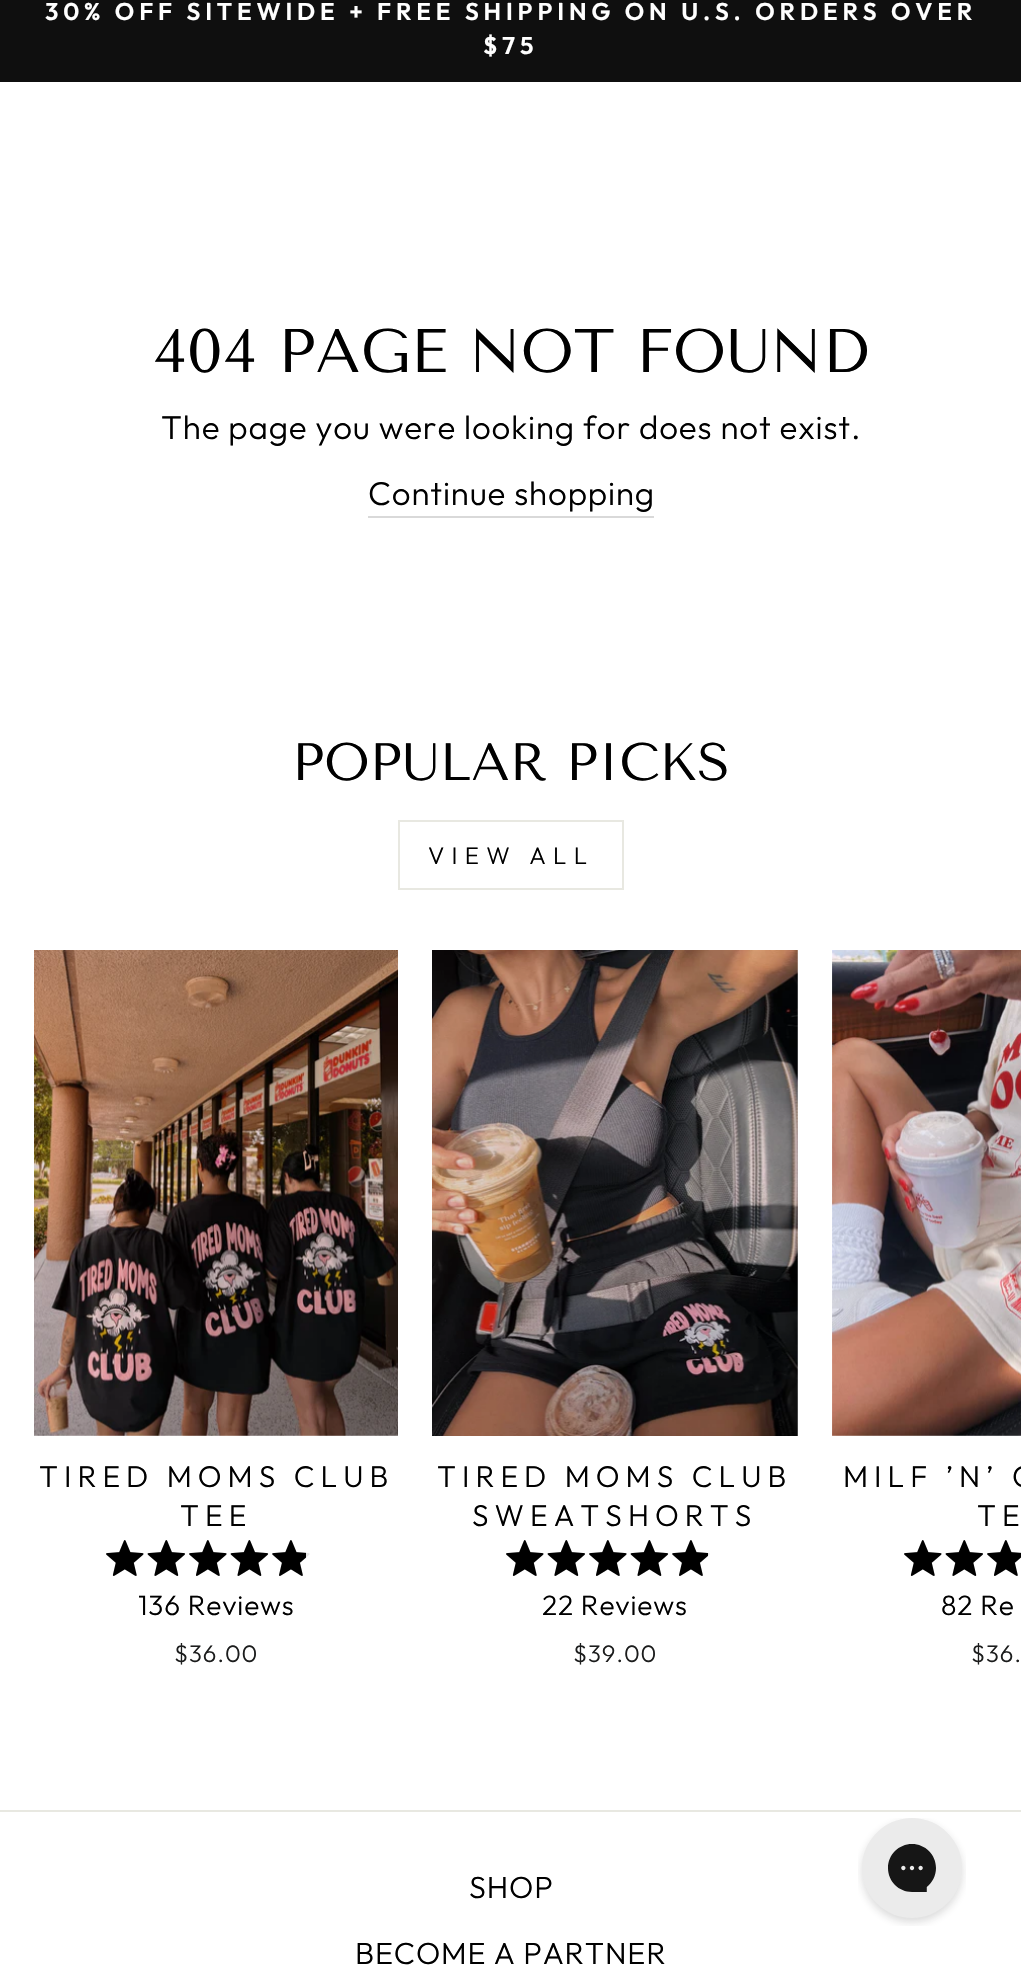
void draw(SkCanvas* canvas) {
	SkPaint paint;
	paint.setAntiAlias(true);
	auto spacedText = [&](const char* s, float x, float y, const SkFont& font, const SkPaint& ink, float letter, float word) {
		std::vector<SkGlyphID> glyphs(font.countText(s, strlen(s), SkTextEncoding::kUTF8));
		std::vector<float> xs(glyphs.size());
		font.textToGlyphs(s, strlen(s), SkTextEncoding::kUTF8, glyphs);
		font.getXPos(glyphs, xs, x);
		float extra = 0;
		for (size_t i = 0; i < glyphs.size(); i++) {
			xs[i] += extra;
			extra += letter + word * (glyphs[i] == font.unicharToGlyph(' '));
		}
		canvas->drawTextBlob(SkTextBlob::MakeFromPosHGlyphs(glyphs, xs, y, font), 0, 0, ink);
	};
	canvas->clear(0xffffffff);
	paint.setColor(0xff0f0f0f);
	canvas->drawRect(SkRect::MakeXYWH(0, 0, 1021, 82), paint);
	SkFont f1(fontMgr->matchFamilyStyle("Outfit", SkFontStyle(600, SkFontStyle::kNormal_Width, SkFontStyle::kUpright_Slant)), 24.3);
	f1.setSubpixel(true);
	paint.setColor(0xffffffff);
	spacedText("30% OFF SITEWIDE + FREE SHIPPING ON U.S. ORDERS OVER", 45, 20, f1, paint, 4.85, 0);
	spacedText("$75", 483, 54, f1, paint, 4.85, 0);
	SkFont f2(fontMgr->matchFamilyStyle("Tenor Sans", SkFontStyle::Normal()), 61.25);
	f2.setSubpixel(true);
	paint.setColor(0xff000000);
	canvas->drawString("404 PAGE NOT FOUND", 153, 372, f2, paint);
	SkFont f3(fontMgr->matchFamilyStyle("Outfit", SkFontStyle(300, SkFontStyle::kNormal_Width, SkFontStyle::kUpright_Slant)), 33.1);
	f3.setSubpixel(true);
	spacedText("The page you were looking for does not exist.", 161, 439, f3, paint, 0.85, 0);
	paint.setColor(0xffd9d9d9);
	canvas->drawRect(SkRect::MakeXYWH(368, 516, 286, 2), paint);
	paint.setColor(0xff000000);
	spacedText("Continue shopping", 368, 505, f3, paint, 0.85, 0);
	SkFont f4(fontMgr->matchFamilyStyle("Tenor Sans", SkFontStyle::Normal()), 52.5);
	f4.setSubpixel(true);
	canvas->drawString("POPULAR PICKS", 292, 780, f4, paint);
	paint.setStroke(true);
	paint.setStrokeWidth(2);
	paint.setColor(0xffe8e8e1);
	canvas->drawRect(SkRect::MakeXYWH(399, 821, 224, 68), paint);
	SkFont f5(fontMgr->matchFamilyStyle("Outfit", SkFontStyle(300, SkFontStyle::kNormal_Width, SkFontStyle::kUpright_Slant)), 24);
	f5.setSubpixel(true);
	paint.setStroke(false);
	paint.setColor(0xff000000);
	spacedText("VIEW ALL", 428, 864, f5, paint, 7.25, 0);
	canvas->drawImageRect(SkImages::DeferredFromEncodedData(SkData::MakeFromFileName("img1.png")), SkRect::MakeXYWH(34, 950, 364, 486), SkSamplingOptions());
	SkFont f6(fontMgr->matchFamilyStyle("Outfit", SkFontStyle(300, SkFontStyle::kNormal_Width, SkFontStyle::kUpright_Slant)), 30);
	f6.setSubpixel(true);
	spacedText("TIRED MOMS CLUB", 39, 1487, f6, paint, 6, 0);
	spacedText("TEE", 180, 1526, f6, paint, 6, 0);
	canvas->drawImageRect(SkImages::DeferredFromEncodedData(SkData::MakeFromFileName("img2.png")), SkRect::MakeXYWH(106, 1540, 204, 36), SkSamplingOptions());
	canvas->drawImageRect(SkImages::DeferredFromEncodedData(SkData::MakeFromFileName("img3.png")), SkRect::MakeXYWH(106, 1540, 200, 36), SkSamplingOptions());
	SkFont f7(fontMgr->matchFamilyStyle("Outfit", SkFontStyle(300, SkFontStyle::kNormal_Width, SkFontStyle::kUpright_Slant)), 28);
	f7.setSubpixel(true);
	spacedText("136 Reviews", 138, 1615, f7, paint, 0.85, 0);
	paint.setColor(0xff1c1d1d);
	spacedText("$36.00", 174, 1662, f5, paint, 0.85, 0);
	canvas->drawImageRect(SkImages::DeferredFromEncodedData(SkData::MakeFromFileName("img4.png")), SkRect::MakeXYWH(432, 950, 366, 486), SkSamplingOptions());
	paint.setColor(0xff000000);
	spacedText("TIRED MOMS CLUB", 437, 1487, f6, paint, 6, 0);
	spacedText("SWEATSHORTS", 472, 1526, f6, paint, 6, 0);
	canvas->drawImageRect(SkImages::DeferredFromEncodedData(SkData::MakeFromFileName("img2.png")), SkRect::MakeXYWH(506, 1540, 204, 36), SkSamplingOptions());
	canvas->drawImageRect(SkImages::DeferredFromEncodedData(SkData::MakeFromFileName("img5.png")), SkRect::MakeXYWH(506, 1540, 202, 36), SkSamplingOptions());
	spacedText("22 Reviews", 542, 1615, f7, paint, 0.85, 0);
	paint.setColor(0xff1c1d1d);
	spacedText("$39.00", 573, 1662, f5, paint, 0.85, 0);
	canvas->drawImageRect(SkImages::DeferredFromEncodedData(SkData::MakeFromFileName("img6.png")), SkRect::MakeXYWH(832, 950, 189, 486), SkSamplingOptions());
	paint.setColor(0xff000000);
	spacedText("MILF ’N’ C", 843, 1487, f6, paint, 6, 0);
	spacedText("TE", 977, 1526, f6, paint, 6, 0);
	canvas->drawImageRect(SkImages::DeferredFromEncodedData(SkData::MakeFromFileName("img7.png")), SkRect::MakeXYWH(904, 1540, 117, 36), SkSamplingOptions());
	canvas->drawImageRect(SkImages::DeferredFromEncodedData(SkData::MakeFromFileName("img8.png")), SkRect::MakeXYWH(904, 1540, 117, 36), SkSamplingOptions());
	spacedText("82 Re", 941, 1615, f7, paint, 0.85, 0);
	paint.setColor(0xff1c1d1d);
	spacedText("$36.", 971, 1662, f5, paint, 0.85, 0);
	paint.setColor(0xffe8e8e1);
	canvas->drawRect(SkRect::MakeXYWH(0, 1810, 1021, 2), paint);
	SkFont f8(fontMgr->matchFamilyStyle("Outfit", SkFontStyle(300, SkFontStyle::kNormal_Width, SkFontStyle::kUpright_Slant)), 30.6);
	f8.setSubpixel(true);
	paint.setColor(0xff000000);
	spacedText("SHOP", 469, 1898, f8, paint, 0.85, 0);
	spacedText("BECOME A PARTNER", 355, 1964, f8, paint, 0.85, 0);
	canvas->drawImageRect(SkImages::DeferredFromEncodedData(SkData::MakeFromFileName("img9.png")), SkRect::MakeXYWH(858, 1818, 108, 108), SkSamplingOptions());
}
